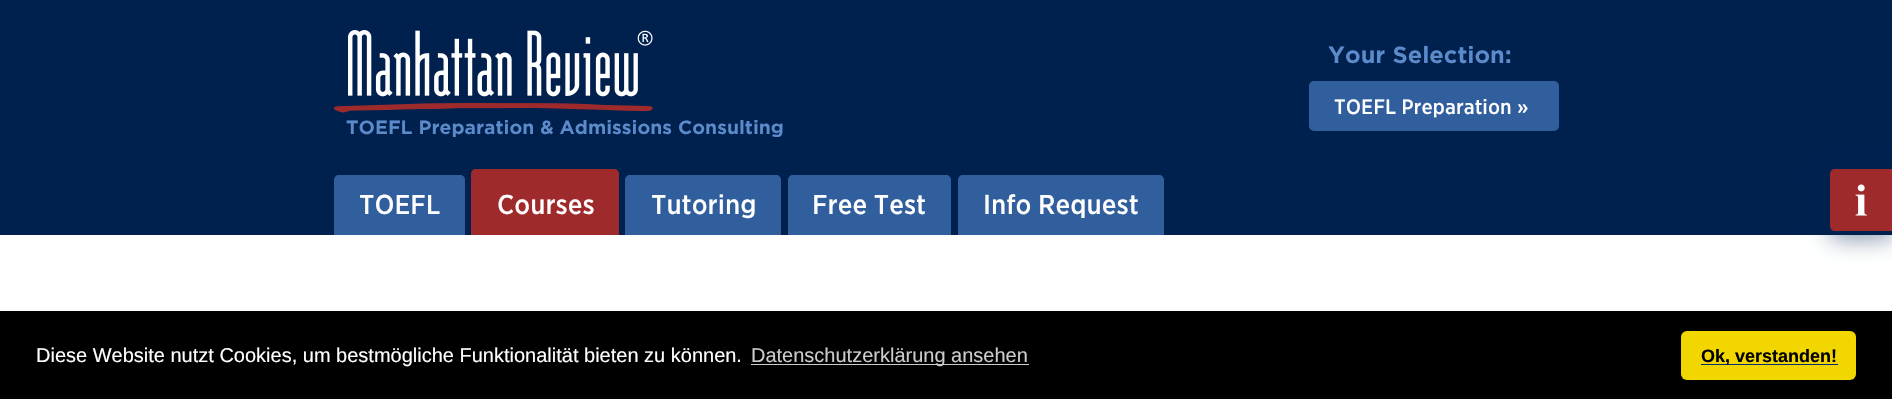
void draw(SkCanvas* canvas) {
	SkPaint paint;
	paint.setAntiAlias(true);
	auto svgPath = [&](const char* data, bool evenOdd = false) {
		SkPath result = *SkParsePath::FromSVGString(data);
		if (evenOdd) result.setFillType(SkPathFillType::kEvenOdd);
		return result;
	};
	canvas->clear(0xff00204e);
	SkFont f1(fontMgr->matchFamilyStyle("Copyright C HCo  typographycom", SkFontStyle::Normal()), 22.5);
	f1.setSubpixel(true);
	paint.setColor(0xff5c8bcb);
	canvas->drawString("Your Selection:", 1328, 63, f1, paint);
	paint.setColor(0xff315e9c);
	canvas->drawRoundRect(SkRect::MakeXYWH(1309, 81, 250, 50), 5, 5, paint);
	SkFont f2(fontMgr->matchFamilyStyle("Copyright C HCo  typographycom", SkFontStyle(300, SkFontStyle::kNormal_Width, SkFontStyle::kUpright_Slant)), 20);
	f2.setSubpixel(true);
	paint.setColor(0xffffffff);
	canvas->drawString("TOEFL Preparation", 1334, 114, f2, paint);
	canvas->drawString("»", 1517, 114, f2, paint);
	canvas->drawImageRect(SkImages::DeferredFromEncodedData(SkData::MakeFromFileName("img1.png")), SkRect::MakeXYWH(334, 30, 319, 83), SkSamplingOptions());
	SkFont f3(fontMgr->matchFamilyStyle("Copyright C HCo  typographycom", SkFontStyle::Normal()), 18.4);
	f3.setSubpixel(true);
	paint.setColor(0xff5c8bcb);
	canvas->drawString("TOEFL Preparation & Admissions Consulting", 346, 134, f3, paint);
	paint.setColor(0xff315e9c);
	canvas->drawPath(svgPath("M339 175H460C463 175 465 177 465 180V235H334V180C334 177 336 175 339 175Z"), paint);
	SkFont f4(fontMgr->matchFamilyStyle("Copyright C HCo  typographycom", SkFontStyle(300, SkFontStyle::kNormal_Width, SkFontStyle::kUpright_Slant)), 26.25);
	f4.setSubpixel(true);
	paint.setColor(0xffffffff);
	canvas->drawString("TOEFL", 359, 214, f4, paint);
	paint.setColor(0xff9e2a2b);
	canvas->drawPath(svgPath("M476 169H614C617 169 619 171 619 174V235H471V174C471 171 473 169 476 169Z"), paint);
	paint.setColor(0xffffffff);
	canvas->drawString("Courses", 497, 214, f4, paint);
	paint.setColor(0xff315e9c);
	canvas->drawPath(svgPath("M630 175H776C779 175 781 177 781 180V235H625V180C625 177 627 175 630 175Z"), paint);
	paint.setColor(0xffffffff);
	canvas->drawString("Tutoring", 651, 214, f4, paint);
	paint.setColor(0xff315e9c);
	canvas->drawPath(svgPath("M793 175H946C949 175 951 177 951 180V235H788V180C788 177 790 175 793 175Z"), paint);
	paint.setColor(0xffffffff);
	canvas->drawString("Free Test", 812, 214, f4, paint);
	paint.setColor(0xff315e9c);
	canvas->drawPath(svgPath("M963 175H1159C1162 175 1164 177 1164 180V235H958V180C958 177 960 175 963 175Z"), paint);
	paint.setColor(0xffffffff);
	canvas->drawString("Info Request", 983, 214, f4, paint);
	canvas->drawRect(SkRect::MakeXYWH(0, 235, 1892, 76), paint);
	paint.setColor(0x8000204e);
	paint.setMaskFilter(SkMaskFilter::MakeBlur(kNormal_SkBlurStyle, 12.5));
	canvas->drawRoundRect(SkRect::MakeXYWH(1830, 175, 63, 63), 5, 5, paint);
	paint.setMaskFilter(nullptr);
	paint.setColor(0xff9e2a2b);
	canvas->drawPath(svgPath("M1835 169H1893V231H1835C1832 231 1830 229 1830 226V174C1830 171 1832 169 1835 169Z"), paint);
	canvas->drawImageRect(SkImages::DeferredFromEncodedData(SkData::MakeFromFileName("img2.png")), SkRect::MakeXYWH(1855, 184, 12, 32), SkSamplingOptions());
	paint.setColor(0xff000000);
	canvas->drawRect(SkRect::MakeXYWH(0, 311, 1892, 88), paint);
	SkFont f5(fontMgr->matchFamilyStyle("Liberation Sans", SkFontStyle::Normal()), 20);
	f5.setSubpixel(true);
	paint.setColor(0xffffffff);
	canvas->drawString("Diese Website nutzt Cookies, um bestmögliche Funktionalität bieten zu können.", 36, 362, f5, paint);
	paint.setColor(0xffcccccc);
	canvas->drawRect(SkRect::MakeXYWH(751, 364, 278, 1), paint);
	canvas->drawString("Datenschutzerklärung ansehen", 751, 362, f5, paint);
	paint.setColor(0xfff1d600);
	canvas->drawRoundRect(SkRect::MakeXYWH(1681, 331, 175, 49), 6, 6, paint);
	paint.setColor(0xff003072);
	canvas->drawRect(SkRect::MakeXYWH(1701, 364, 137, 1), paint);
	SkFont f6(fontMgr->matchFamilyStyle("Liberation Sans", SkFontStyle::Bold()), 18);
	f6.setSubpixel(true);
	paint.setColor(0xff000000);
	canvas->drawString("Ok, verstanden!", 1701, 362, f6, paint);
}
